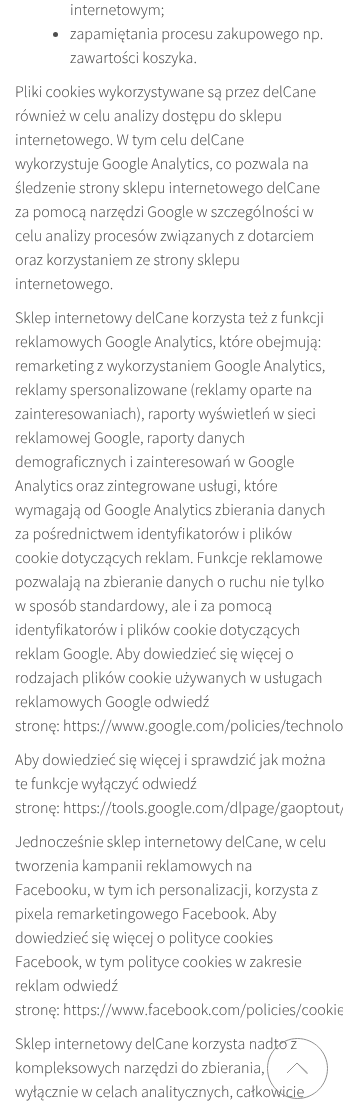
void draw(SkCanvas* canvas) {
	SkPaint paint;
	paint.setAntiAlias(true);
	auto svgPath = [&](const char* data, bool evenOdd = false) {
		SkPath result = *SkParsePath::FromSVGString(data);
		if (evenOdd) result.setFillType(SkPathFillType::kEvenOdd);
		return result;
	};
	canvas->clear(0xffffffff);
	SkFont f1(fontMgr->matchFamilyStyle("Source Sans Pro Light", SkFontStyle(300, SkFontStyle::kNormal_Width, SkFontStyle::kUpright_Slant)), 16);
	f1.setSubpixel(true);
	paint.setColor(0xff4e4e4e);
	canvas->drawString("internetowym;", 70, 15, f1, paint);
	canvas->drawCircle(55.5, 34.5, 2.5, paint);
	canvas->drawString("zapamiętania procesu zakupowego np.", 70, 39, f1, paint);
	canvas->drawString("zawartości koszyka.", 70, 63, f1, paint);
	canvas->drawString("Pliki cookies wykorzystywane są przez delCane", 15, 97, f1, paint);
	canvas->drawString("również w celu analizy dostępu do sklepu", 15, 121, f1, paint);
	canvas->drawString("internetowego. W tym celu delCane", 15, 145, f1, paint);
	canvas->drawString("wykorzystuje Google Analytics, co pozwala na", 15, 169, f1, paint);
	canvas->drawString("śledzenie strony sklepu internetowego delCane", 15, 193, f1, paint);
	canvas->drawString("za pomocą narzędzi Google w szczególności w", 15, 217, f1, paint);
	canvas->drawString("celu analizy procesów związanych z dotarciem", 15, 241, f1, paint);
	canvas->drawString("oraz korzystaniem ze strony sklepu", 15, 265, f1, paint);
	canvas->drawString("internetowego.", 15, 289, f1, paint);
	canvas->drawString("Sklep internetowy delCane korzysta też z funkcji", 15, 323, f1, paint);
	canvas->drawString("reklamowych Google Analytics, które obejmują:", 15, 347, f1, paint);
	canvas->drawString("remarketing z wykorzystaniem Google Analytics,", 15, 371, f1, paint);
	canvas->drawString("reklamy spersonalizowane (reklamy oparte na", 15, 395, f1, paint);
	canvas->drawString("zainteresowaniach), raporty wyświetleń w sieci", 15, 419, f1, paint);
	canvas->drawString("reklamowej Google, raporty danych", 15, 443, f1, paint);
	canvas->drawString("demograficznych i zainteresowań w Google", 15, 467, f1, paint);
	canvas->drawString("Analytics oraz zintegrowane usługi, które", 15, 491, f1, paint);
	canvas->drawString("wymagają od Google Analytics zbierania danych", 15, 515, f1, paint);
	canvas->drawString("za pośrednictwem identyfikatorów i plików", 15, 539, f1, paint);
	canvas->drawString("cookie dotyczących reklam. Funkcje reklamowe", 15, 563, f1, paint);
	canvas->drawString("pozwalają na zbieranie danych o ruchu nie tylko", 15, 587, f1, paint);
	canvas->drawString("w sposób standardowy, ale i za pomocą", 15, 611, f1, paint);
	canvas->drawString("identyfikatorów i plików cookie dotyczących", 15, 635, f1, paint);
	canvas->drawString("reklam Google. Aby dowiedzieć się więcej o", 15, 659, f1, paint);
	canvas->drawString("rodzajach plików cookie używanych w usługach", 15, 683, f1, paint);
	canvas->drawString("reklamowych Google odwiedź", 15, 707, f1, paint);
	canvas->drawString("stronę:", 15, 731, f1, paint);
	canvas->drawString("https://www.google.com/policies/technolo", 63, 731, f1, paint);
	canvas->drawString("Aby dowiedzieć się więcej i sprawdzić jak można", 15, 765, f1, paint);
	canvas->drawString("te funkcje wyłączyć odwiedź", 15, 789, f1, paint);
	canvas->drawString("stronę:", 15, 813, f1, paint);
	canvas->drawString("https://tools.google.com/dlpage/gaoptout/", 63, 813, f1, paint);
	canvas->drawString("Jednocześnie sklep internetowy delCane, w celu", 15, 847, f1, paint);
	canvas->drawString("tworzenia kampanii reklamowych na", 15, 871, f1, paint);
	canvas->drawString("Facebooku, w tym ich personalizacji, korzysta z", 15, 895, f1, paint);
	canvas->drawString("pixela remarketingowego Facebook. Aby", 15, 919, f1, paint);
	canvas->drawString("dowiedzieć się więcej o polityce cookies", 15, 943, f1, paint);
	canvas->drawString("Facebook, w tym polityce cookies w zakresie", 15, 967, f1, paint);
	canvas->drawString("reklam odwiedź", 15, 991, f1, paint);
	canvas->drawString("stronę:", 15, 1015, f1, paint);
	canvas->drawString("https://www.facebook.com/policies/cookie", 63, 1015, f1, paint);
	canvas->drawString("Sklep internetowy delCane korzysta nadto z", 15, 1049, f1, paint);
	canvas->drawString("kompleksowych narzędzi do zbierania,", 15, 1073, f1, paint);
	canvas->drawString("wyłącznie w celach analitycznych, całkowicie", 15, 1097, f1, paint);
	paint.setStroke(true);
	paint.setStrokeWidth(1);
	paint.setColor(0xff8e8e8e);
	canvas->drawPath(svgPath("M297.5 1098.5C281 1098.5 267.5 1085 267.5 1068.5C267.5 1052 281 1038.5 297.5 1038.5C314 1038.5 327.5 1052 327.5 1068.5C327.5 1085 314 1098.5 297.5 1098.5ZM297 1063L287 1073ZM307 1073.5L297 1063L307.5 1073Z"), paint);
}
